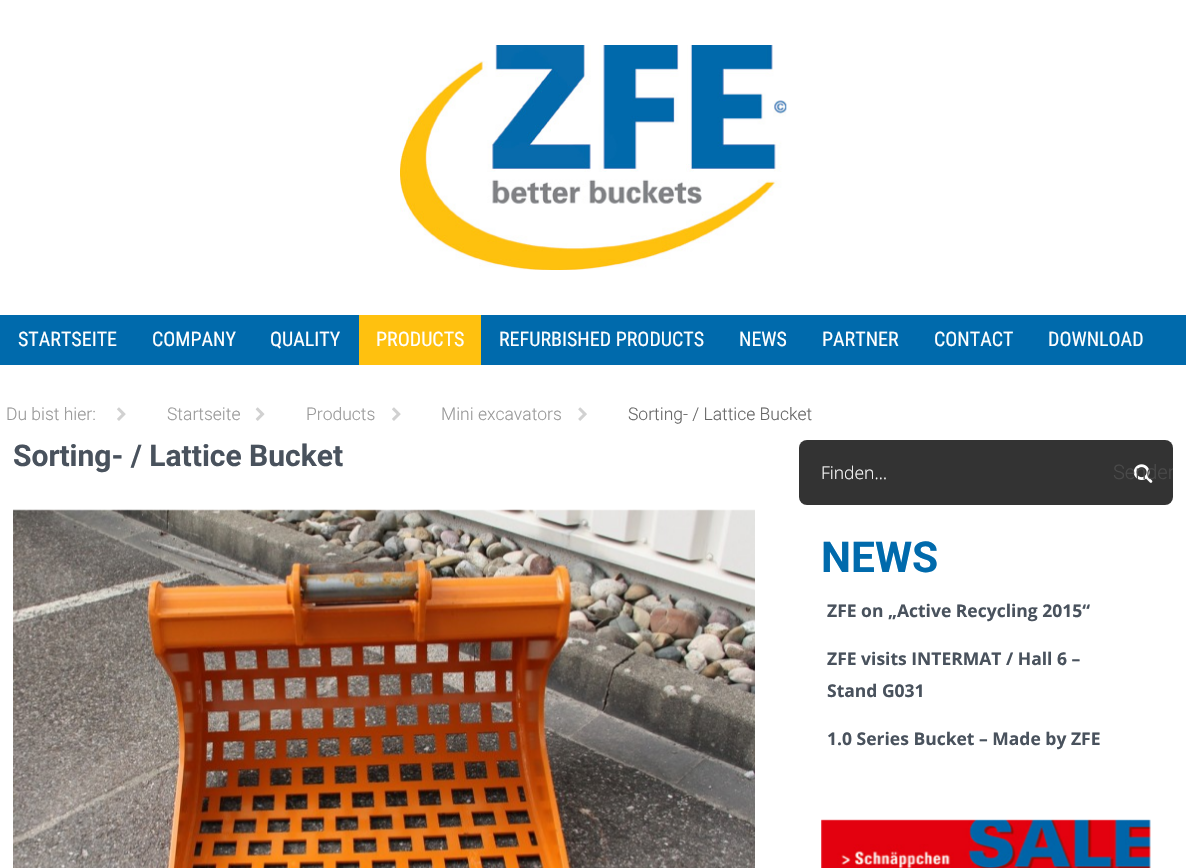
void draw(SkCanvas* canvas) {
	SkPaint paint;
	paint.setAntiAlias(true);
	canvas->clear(0xffffffff);
	canvas->drawImageRect(SkImages::DeferredFromEncodedData(SkData::MakeFromFileName("img1.png")), SkRect::MakeXYWH(400, 45, 387, 225), SkSamplingOptions());
	paint.setColor(0xff006aac);
	canvas->drawRect(SkRect::MakeXYWH(0, 315, 1186, 50), paint);
	SkFont f1(fontMgr->matchFamilyStyle("Roboto Condensed", SkFontStyle::Normal()), 20);
	f1.setSubpixel(true);
	paint.setColor(0xffffffff);
	canvas->drawString("STARTSEITE", 18, 346, f1, paint);
	canvas->drawString("COMPANY", 152, 346, f1, paint);
	canvas->drawString("QUALITY", 270, 346, f1, paint);
	paint.setColor(0xffffc10f);
	canvas->drawRect(SkRect::MakeXYWH(359, 315, 122, 50), paint);
	paint.setColor(0xffffffff);
	canvas->drawString("PRODUCTS", 376, 346, f1, paint);
	canvas->drawString("REFURBISHED PRODUCTS", 499, 346, f1, paint);
	canvas->drawString("NEWS", 739, 346, f1, paint);
	canvas->drawString("PARTNER", 822, 346, f1, paint);
	canvas->drawString("CONTACT", 934, 346, f1, paint);
	canvas->drawString("DOWNLOAD", 1048, 346, f1, paint);
	SkFont f2(fontMgr->matchFamilyStyle("Roboto", SkFontStyle(300, SkFontStyle::kNormal_Width, SkFontStyle::kUpright_Slant)), 17.5);
	f2.setSubpixel(true);
	paint.setColor(0xff999999);
	canvas->drawString("Du bist hier:", 6, 420, f2, paint);
	canvas->drawImageRect(SkImages::DeferredFromEncodedData(SkData::MakeFromFileName("img2.png")), SkRect::MakeXYWH(117, 407, 9, 14), SkSamplingOptions());
	canvas->drawString("Startseite", 167, 420, f2, paint);
	canvas->drawImageRect(SkImages::DeferredFromEncodedData(SkData::MakeFromFileName("img3.png")), SkRect::MakeXYWH(255, 407, 10, 14), SkSamplingOptions());
	canvas->drawString("Products", 306, 420, f2, paint);
	canvas->drawImageRect(SkImages::DeferredFromEncodedData(SkData::MakeFromFileName("img2.png")), SkRect::MakeXYWH(392, 407, 9, 14), SkSamplingOptions());
	canvas->drawString("Mini excavators", 441, 420, f2, paint);
	canvas->drawImageRect(SkImages::DeferredFromEncodedData(SkData::MakeFromFileName("img4.png")), SkRect::MakeXYWH(578, 407, 9, 14), SkSamplingOptions());
	paint.setColor(0xff666666);
	canvas->drawString("Sorting- / Lattice Bucket", 628, 420, f2, paint);
	SkFont f3(fontMgr->matchFamilyStyle("Roboto", SkFontStyle::Bold()), 30);
	f3.setSubpixel(true);
	paint.setColor(0xff49525d);
	canvas->drawString("Sorting- / Lattice Bucket", 13, 466, f3, paint);
	canvas->drawImageRect(SkImages::DeferredFromEncodedData(SkData::MakeFromFileName("img5.png")), SkRect::MakeXYWH(13, 509, 742, 359), SkSamplingOptions());
	paint.setColor(0xff333333);
	canvas->drawRoundRect(SkRect::MakeXYWH(799, 440, 374, 65), 8, 8, paint);
	SkFont f4(fontMgr->matchFamilyStyle("Open Sans", SkFontStyle(300, SkFontStyle::kNormal_Width, SkFontStyle::kUpright_Slant)), 17.5);
	f4.setSubpixel(true);
	paint.setColor(0xffffffff);
	canvas->drawString("Finden…", 821, 479, f4, paint);
	canvas->drawImageRect(SkImages::DeferredFromEncodedData(SkData::MakeFromFileName("img6.png")), SkRect::MakeXYWH(1133, 464, 20, 19), SkSamplingOptions());
	canvas->save();
	canvas->clipRect(SkRect::MakeXYWH(1113, 440, 60, 65));
	SkFont f5(fontMgr->matchFamilyStyle("Roboto", SkFontStyle(300, SkFontStyle::kNormal_Width, SkFontStyle::kUpright_Slant)), 20);
	f5.setSubpixel(true);
	paint.setColor(0xff4a4a4a);
	canvas->drawString("Senden", 1113, 479, f5, paint);
	canvas->restore();
	SkFont f6(fontMgr->matchFamilyStyle("Roboto", SkFontStyle::Bold()), 42.5);
	f6.setSubpixel(true);
	paint.setColor(0xff006aac);
	canvas->drawString("NEWS", 821, 572, f6, paint);
	SkFont f7(fontMgr->matchFamilyStyle("Open Sans", SkFontStyle::Bold()), 17.5);
	f7.setSubpixel(true);
	paint.setColor(0xff49525d);
	canvas->drawString("ZFE on „Active Recycling 2015“", 827, 617, f7, paint);
	canvas->drawString("ZFE visits INTERMAT / Hall 6 –", 827, 665, f7, paint);
	canvas->drawString("Stand G031", 827, 697, f7, paint);
	canvas->drawString("1.0 Series Bucket – Made by ZFE", 827, 745, f7, paint);
	canvas->drawImageRect(SkImages::DeferredFromEncodedData(SkData::MakeFromFileName("img7.png")), SkRect::MakeXYWH(821, 819, 330, 49), SkSamplingOptions());
}
